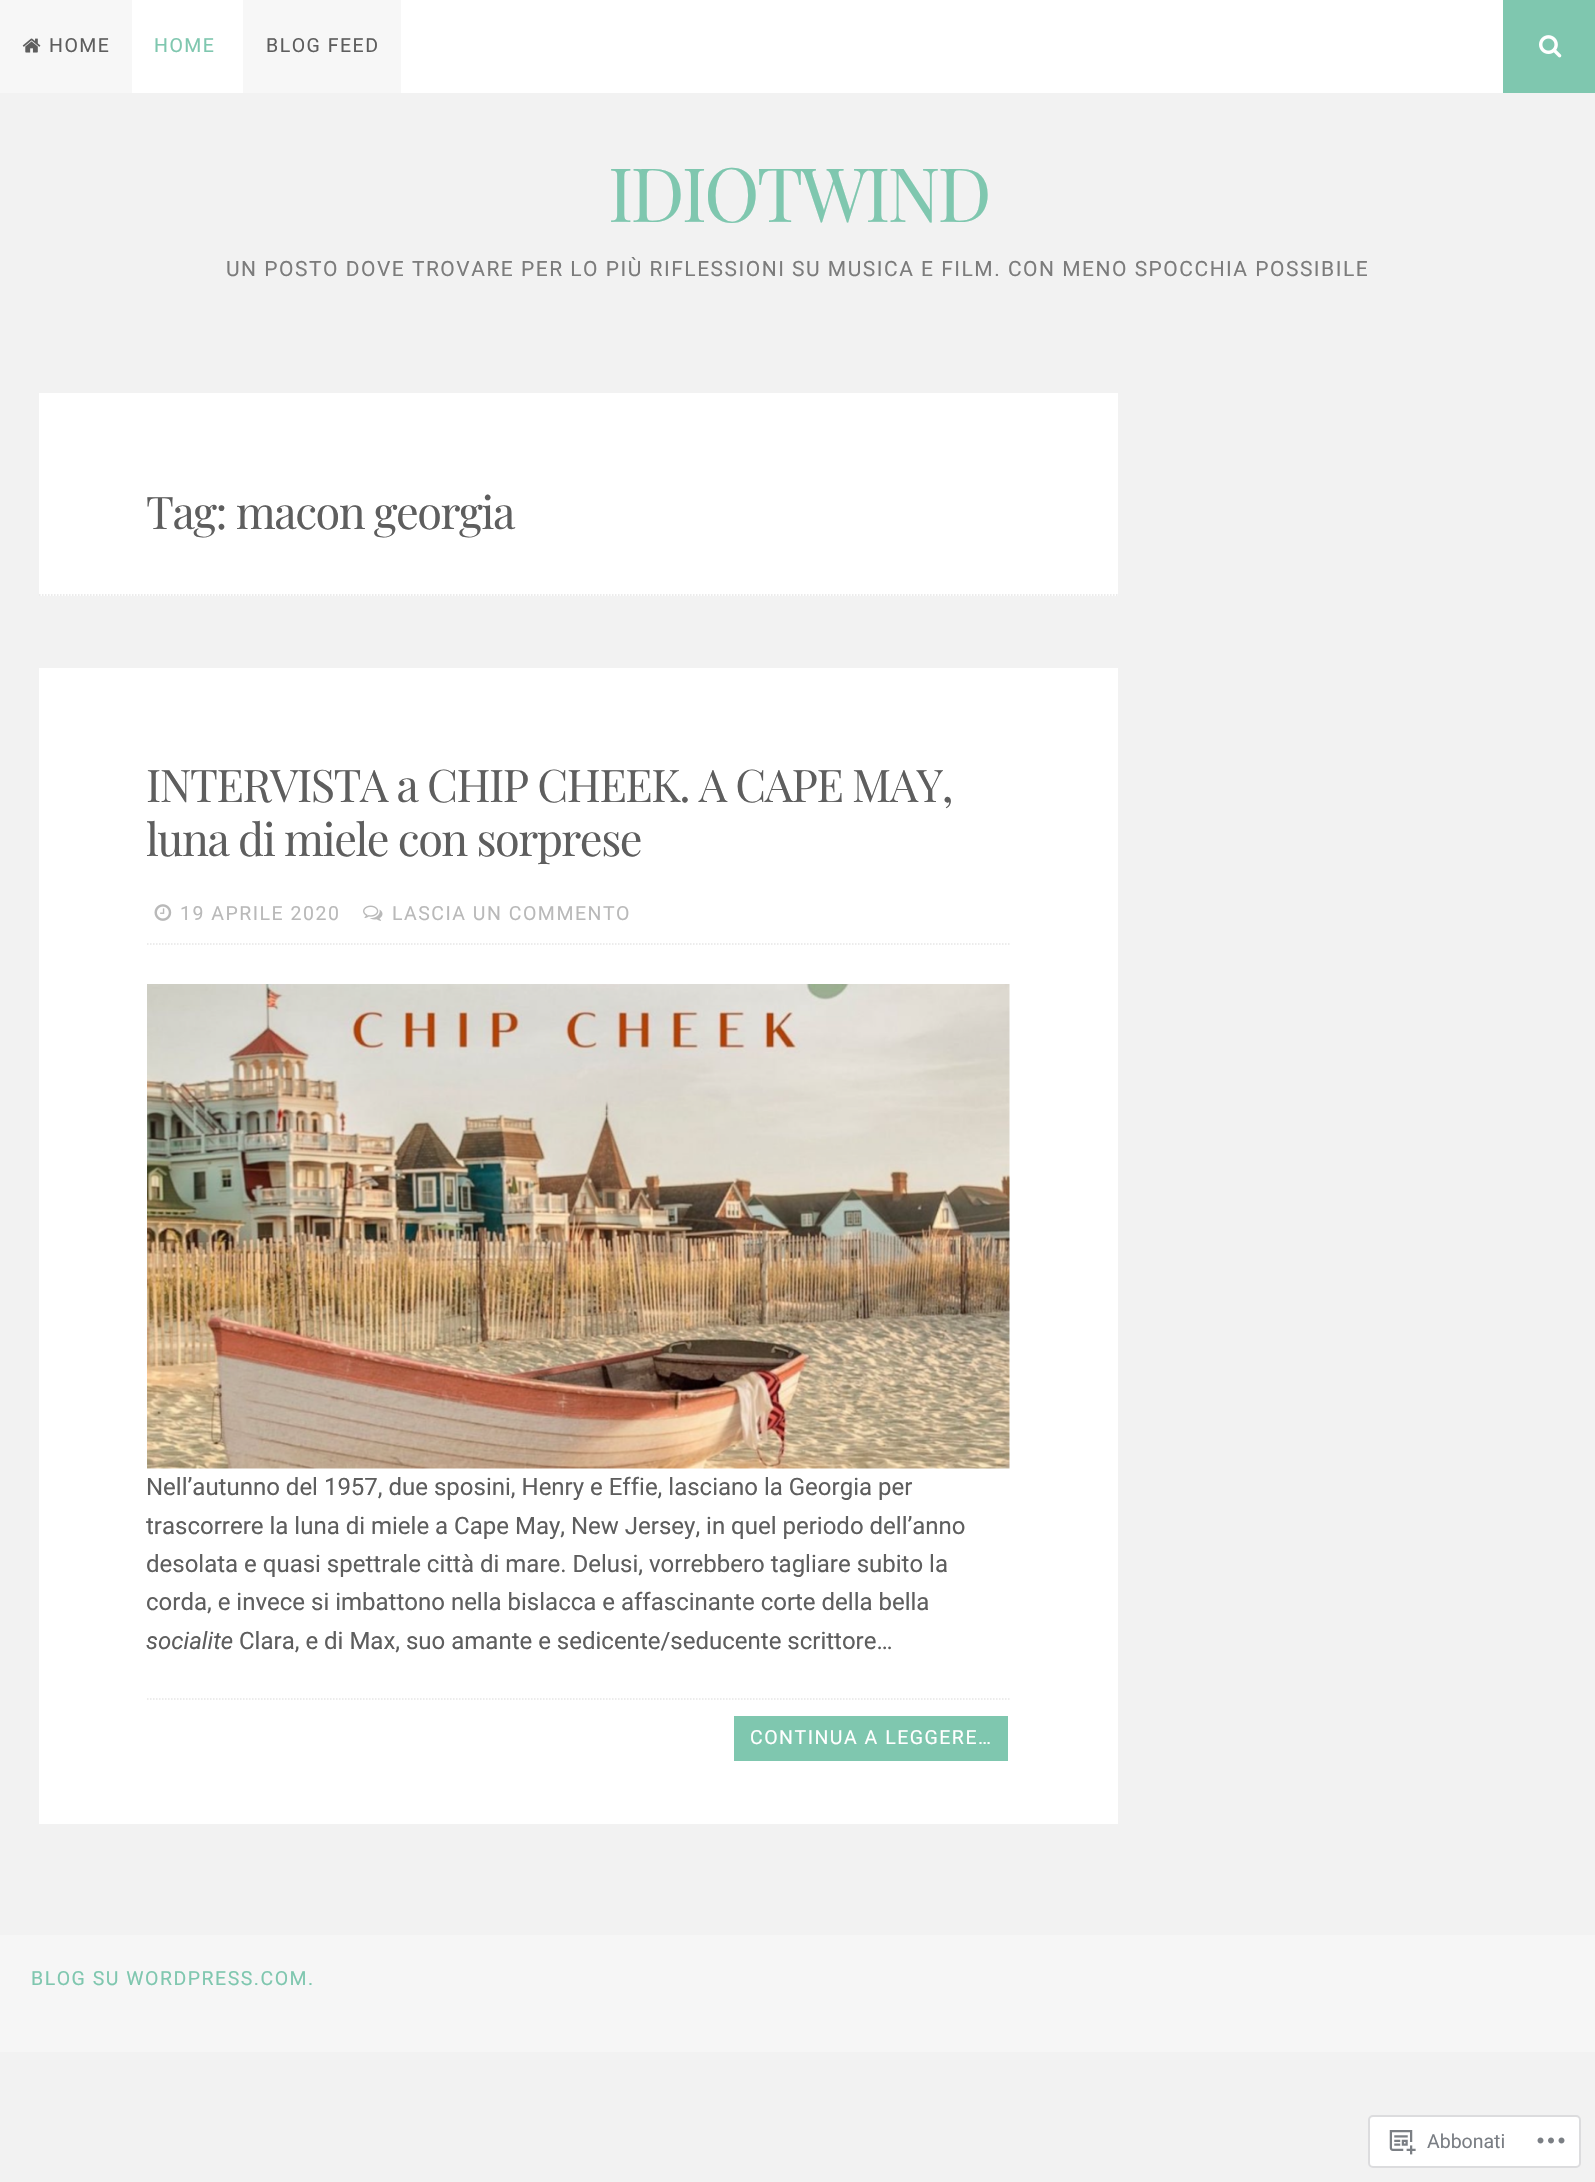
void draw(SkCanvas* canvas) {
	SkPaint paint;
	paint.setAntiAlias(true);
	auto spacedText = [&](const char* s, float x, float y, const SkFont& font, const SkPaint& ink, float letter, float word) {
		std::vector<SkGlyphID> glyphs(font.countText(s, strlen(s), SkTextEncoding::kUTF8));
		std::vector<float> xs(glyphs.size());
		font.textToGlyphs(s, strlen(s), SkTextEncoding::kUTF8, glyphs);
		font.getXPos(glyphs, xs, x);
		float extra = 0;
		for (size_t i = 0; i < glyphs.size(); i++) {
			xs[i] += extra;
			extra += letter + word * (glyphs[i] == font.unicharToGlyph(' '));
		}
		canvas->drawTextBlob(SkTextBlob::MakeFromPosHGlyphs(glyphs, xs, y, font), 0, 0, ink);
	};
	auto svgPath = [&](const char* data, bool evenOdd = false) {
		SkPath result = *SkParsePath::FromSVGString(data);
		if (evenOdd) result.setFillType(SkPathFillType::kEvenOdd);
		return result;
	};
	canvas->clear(0xfff2f2f2);
	paint.setColor(0xffffffff);
	canvas->drawRect(SkRect::MakeXYWH(132, 0, 1371, 93), paint);
	paint.setColor(0xfff7f7f7);
	canvas->drawRect(SkRect::MakeXYWH(0, 0, 132, 93), paint);
	canvas->drawImageRect(SkImages::DeferredFromEncodedData(SkData::MakeFromFileName("img1.png")), SkRect::MakeXYWH(22, 38, 19, 15), SkSamplingOptions());
	SkFont f1(fontMgr->matchFamilyStyle("Roboto", SkFontStyle::Normal()), 19.5);
	f1.setSubpixel(true);
	paint.setColor(0xff5e5e5e);
	spacedText("HOME", 49, 52, f1, paint, 1.5, 0);
	paint.setColor(0xff7fc7af);
	spacedText("HOME", 154, 52, f1, paint, 1.5, 0);
	paint.setColor(0xfff7f7f7);
	canvas->drawRect(SkRect::MakeXYWH(243, 0, 158, 93), paint);
	paint.setColor(0xff5e5e5e);
	spacedText("BLOG FEED", 266, 52, f1, paint, 1.5, 0);
	paint.setColor(0xff7fc7af);
	canvas->drawRect(SkRect::MakeXYWH(1503, 0, 92, 93), paint);
	canvas->drawImageRect(SkImages::DeferredFromEncodedData(SkData::MakeFromFileName("img2.png")), SkRect::MakeXYWH(1539, 35, 23, 23), SkSamplingOptions());
	SkFont f2(fontMgr->matchFamilyStyle("Playfair Display", SkFontStyle::Normal()), 75);
	f2.setSubpixel(true);
	spacedText("IDIOTWIND", 608, 222, f2, paint, -3, 0);
	SkFont f3(fontMgr->matchFamilyStyle("Roboto", SkFontStyle::Normal()), 21);
	f3.setSubpixel(true);
	paint.setColor(0xff7c7c7c);
	spacedText("UN POSTO DOVE TROVARE PER LO PIÙ RIFLESSIONI SU MUSICA E FILM. CON MENO SPOCCHIA POSSIBILE", 226, 276, f3, paint, 1.5, 0);
	paint.setColor(0xffffffff);
	canvas->drawRect(SkRect::MakeXYWH(39, 393, 1079, 203), paint);
	paint.setStroke(true);
	paint.setStrokeWidth(1.5);
	paint.setColor(0xffe6e6e6);
	paint.setPathEffect(SkDashPathEffect::Make({{1.5f, 1.5f}}, 0));
	canvas->drawPath(svgPath("M39 595H1117.5"), paint);
	paint.setPathEffect(nullptr);
	SkFont f4(fontMgr->matchFamilyStyle("Playfair Display", SkFontStyle::Normal()), 45);
	f4.setSubpixel(true);
	paint.setStroke(false);
	paint.setColor(0xff5e5e5e);
	spacedText("Tag: macon georgia", 146, 529, f4, paint, -1.5, 0);
	paint.setColor(0xffffffff);
	canvas->drawRect(SkRect::MakeXYWH(39, 668, 1079, 1156), paint);
	paint.setColor(0xff5e5e5e);
	spacedText("INTERVISTA a CHIP CHEEK. A CAPE MAY,", 146, 802, f4, paint, -1.5, 0);
	spacedText("luna di miele con sorprese", 146, 856, f4, paint, -1.5, 0);
	paint.setStroke(true);
	paint.setColor(0xffe6e6e6);
	paint.setPathEffect(SkDashPathEffect::Make({{1.5f, 1.5f}}, 0));
	canvas->drawPath(svgPath("M147 944H1009.5"), paint);
	paint.setPathEffect(nullptr);
	canvas->drawImageRect(SkImages::DeferredFromEncodedData(SkData::MakeFromFileName("img3.png")), SkRect::MakeXYWH(154, 904, 18, 17), SkSamplingOptions());
	paint.setStroke(false);
	paint.setColor(0xffb9b9b9);
	spacedText("19 APRILE 2020", 180, 920, f1, paint, 1.5, 0);
	canvas->drawImageRect(SkImages::DeferredFromEncodedData(SkData::MakeFromFileName("img4.png")), SkRect::MakeXYWH(363, 905, 20, 16), SkSamplingOptions());
	spacedText("LASCIA UN COMMENTO", 392, 920, f1, paint, 1.5, 0);
	canvas->drawImageRect(SkImages::DeferredFromEncodedData(SkData::MakeFromFileName("img5.png")), SkRect::MakeXYWH(147, 984, 863, 485), SkSamplingOptions());
	SkFont f5(fontMgr->matchFamilyStyle("Roboto", SkFontStyle::Normal()), 24);
	f5.setSubpixel(true);
	paint.setColor(0xff5e5e5e);
	canvas->drawString("Nell’autunno del 1957, due sposini, Henry e Effie, lasciano la Georgia per", 146, 1495, f5, paint);
	canvas->drawString("trascorrere la luna di miele a Cape May, New Jersey, in quel periodo dell’anno", 146, 1534, f5, paint);
	canvas->drawString("desolata e quasi spettrale città di mare. Delusi, vorrebbero tagliare subito la", 146, 1572, f5, paint);
	canvas->drawString("corda, e invece si imbattono nella bislacca e affascinante corte della bella", 146, 1610, f5, paint);
	SkFont f6(fontMgr->matchFamilyStyle("Roboto", SkFontStyle::Italic()), 24);
	f6.setSubpixel(true);
	canvas->drawString("socialite", 146, 1649, f6, paint);
	canvas->drawString("Clara, e di Max, suo amante e sedicente/seducente scrittore…", 239, 1649, f5, paint);
	paint.setColor(0xff7fc7af);
	canvas->drawRect(SkRect::MakeXYWH(734, 1716, 274, 45), paint);
	paint.setColor(0xffffffff);
	spacedText("CONTINUA A LEGGERE…", 750, 1744, f1, paint, 1.5, 0);
	paint.setStroke(true);
	paint.setColor(0xffe6e6e6);
	paint.setPathEffect(SkDashPathEffect::Make({{1.5f, 1.5f}}, 0));
	canvas->drawPath(svgPath("M147 1699H1009.5"), paint);
	paint.setPathEffect(nullptr);
	paint.setStroke(false);
	paint.setColor(0xfff6f6f6);
	canvas->drawRect(SkRect::MakeXYWH(0, 1935, 1595, 117), paint);
	paint.setColor(0xff7fc7af);
	spacedText("BLOG SU WORDPRESS.COM.", 31, 1985, f1, paint, 1.5, 0);
	paint.setColor(0xffffffff);
	canvas->drawRoundRect(SkRect::MakeXYWH(1369, 2116, 211, 51), 4, 4, paint);
	paint.setStroke(true);
	paint.setStrokeWidth(2);
	paint.setColor(0xffdcdcde);
	canvas->drawRoundRect(SkRect::MakeXYWH(1369, 2116, 211, 51), 4, 4, paint);
	canvas->drawImageRect(SkImages::DeferredFromEncodedData(SkData::MakeFromFileName("img6.png")), SkRect::MakeXYWH(1389, 2130, 27, 25), SkSamplingOptions());
	paint.setStroke(false);
	paint.setColor(0xff7a7e84);
	canvas->drawString("Abbonati", 1427, 2148, f1, paint);
	canvas->drawImageRect(SkImages::DeferredFromEncodedData(SkData::MakeFromFileName("img7.png")), SkRect::MakeXYWH(1537, 2137, 28, 7), SkSamplingOptions());
}
